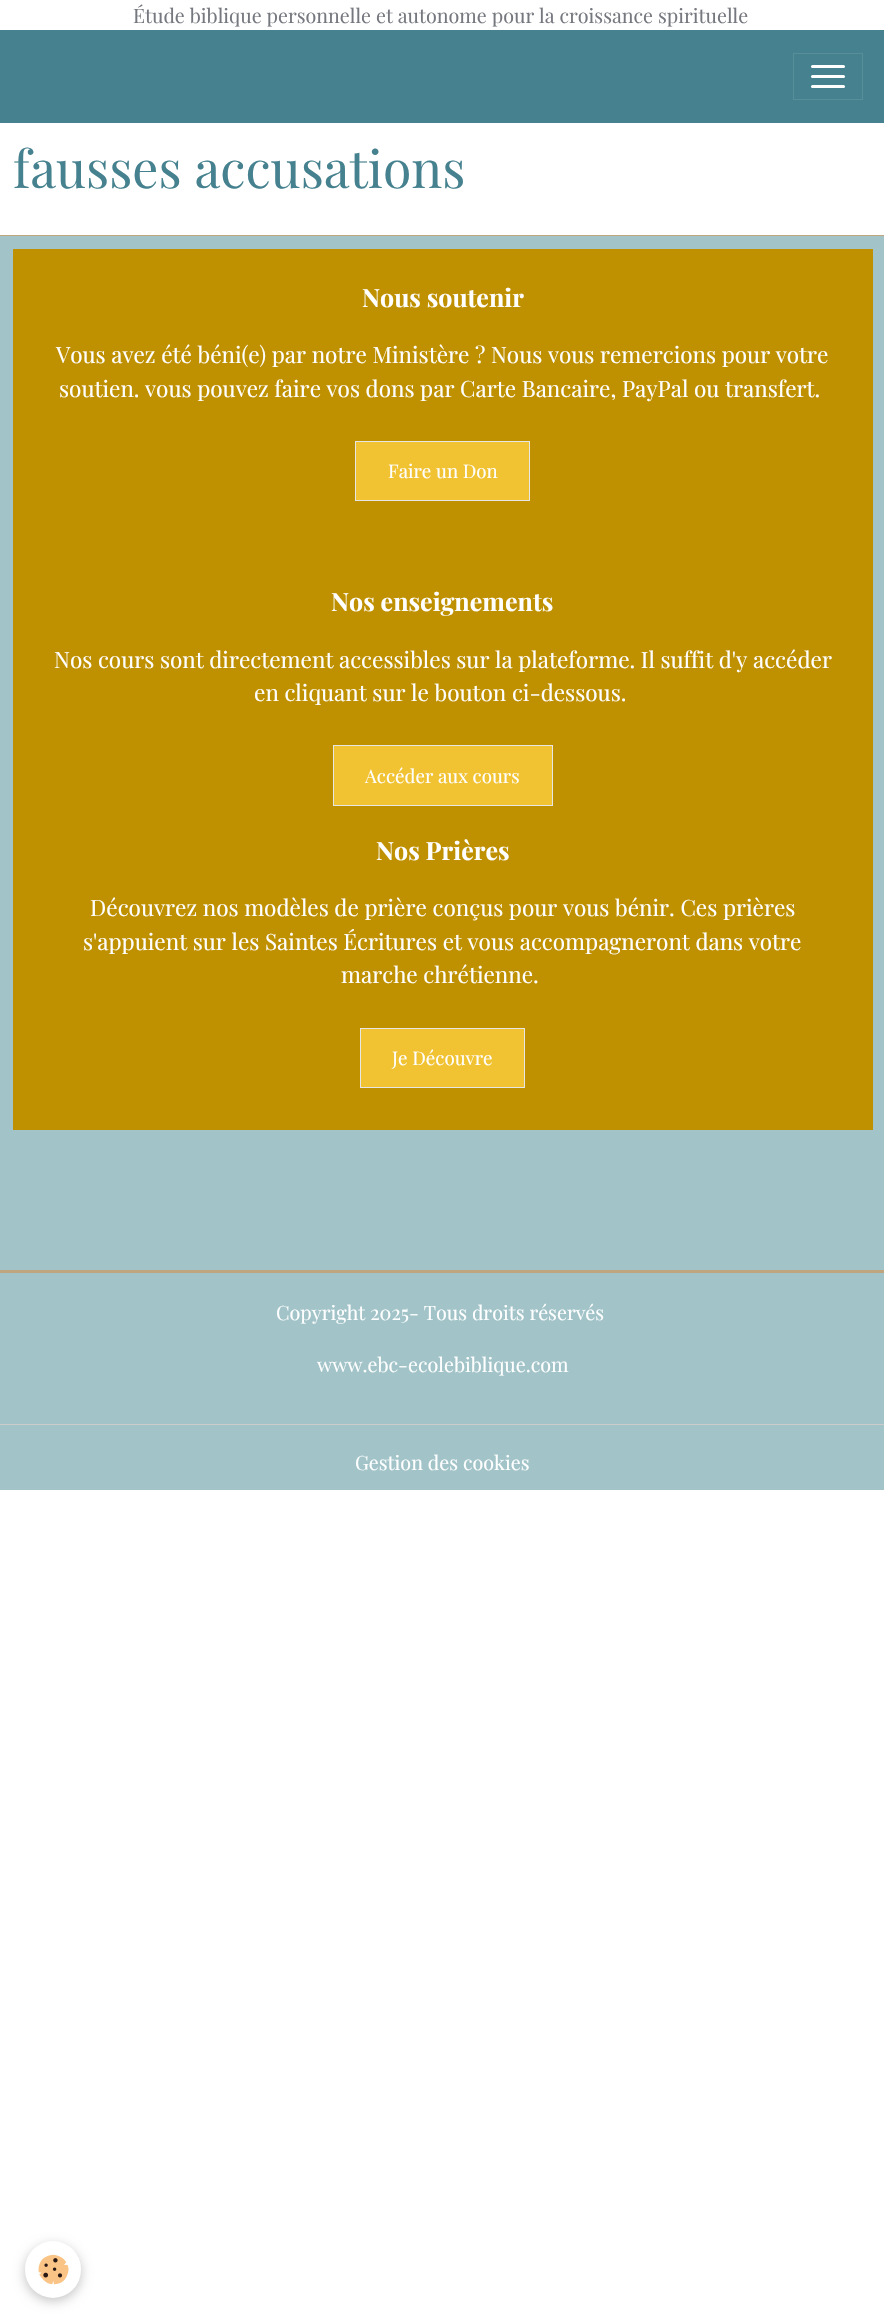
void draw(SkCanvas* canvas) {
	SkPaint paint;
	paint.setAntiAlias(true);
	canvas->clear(0xffffffff);
	SkFont f1(fontMgr->matchFamilyStyle("Playfair Display", SkFontStyle::Normal()), 19.7);
	f1.setSubpixel(true);
	paint.setColor(0xff76787f);
	canvas->drawString("Étude biblique personnelle et autonome pour la croissance spirituelle", 133, 23, f1, paint);
	paint.setColor(0xff45818e);
	canvas->drawRect(SkRect::MakeXYWH(0, 30, 884, 93), paint);
	paint.setStroke(true);
	paint.setStrokeWidth(1);
	paint.setColor(0xff588e99);
	canvas->drawRect(SkRect::MakeXYWH(793.5, 53.5, 69, 46), paint);
	paint.setStroke(false);
	paint.setColor(0xffffffff);
	canvas->drawRoundRect(SkRect::MakeXYWH(811, 65, 34, 3), 1.5, 1.5, paint);
	canvas->drawRoundRect(SkRect::MakeXYWH(811, 75, 34, 3), 1.5, 1.5, paint);
	canvas->drawRoundRect(SkRect::MakeXYWH(811, 85, 34, 3), 1.5, 1.5, paint);
	SkFont f2(fontMgr->matchFamilyStyle("Playfair Display", SkFontStyle::Normal()), 51.75);
	f2.setSubpixel(true);
	paint.setColor(0xff45818e);
	canvas->drawString("fausses accusations", 13, 188, f2, paint);
	paint.setColor(0xffa2c4c9);
	canvas->drawRect(SkRect::MakeXYWH(0, 236, 884, 1254), paint);
	paint.setColor(0xffc0a67f);
	canvas->drawRect(SkRect::MakeXYWH(0, 235, 884, 1), paint);
	paint.setColor(0xffbf9000);
	canvas->drawRect(SkRect::MakeXYWH(13, 249, 860, 881), paint);
	SkFont f3(fontMgr->matchFamilyStyle("Playfair Display", SkFontStyle::Bold()), 25);
	f3.setSubpixel(true);
	paint.setColor(0xffffffff);
	canvas->drawString("Nous soutenir", 362, 307, f3, paint);
	SkFont f4(fontMgr->matchFamilyStyle("Playfair Display", SkFontStyle::Normal()), 22.5);
	f4.setSubpixel(true);
	canvas->drawString("Vous avez été béni(e) par notre Ministère ? Nous vous remercions pour votre", 56, 363, f4, paint);
	canvas->drawString("soutien. vous pouvez faire vos dons par Carte Bancaire, PayPal ou transfert.", 59, 397, f4, paint);
	paint.setColor(0xfff1c232);
	canvas->drawRect(SkRect::MakeXYWH(355.5, 441.5, 174, 59), paint);
	paint.setStroke(true);
	paint.setColor(0xffe6e6e6);
	canvas->drawRect(SkRect::MakeXYWH(355.5, 441.5, 174, 59), paint);
	SkFont f5(fontMgr->matchFamilyStyle("Playfair Display", SkFontStyle::Normal()), 18.75);
	f5.setSubpixel(true);
	paint.setStroke(false);
	paint.setColor(0xffffffff);
	canvas->drawString("Faire un Don", 388, 478, f5, paint);
	canvas->drawString("Nos enseignements", 331, 611, f3, paint);
	canvas->drawString("Nos cours sont directement accessibles sur la plateforme. Il suffit d'y accéder", 54, 668, f4, paint);
	canvas->drawString("en cliquant sur le bouton ci-dessous.", 254, 701, f4, paint);
	paint.setColor(0xfff1c232);
	canvas->drawRect(SkRect::MakeXYWH(333.5, 745.5, 219, 60), paint);
	paint.setStroke(true);
	paint.setColor(0xffe6e6e6);
	canvas->drawRect(SkRect::MakeXYWH(333.5, 745.5, 219, 60), paint);
	paint.setStroke(false);
	paint.setColor(0xffffffff);
	canvas->drawString("Accéder aux cours", 365, 783, f5, paint);
	canvas->drawString("Nos Prières", 376, 860, f3, paint);
	canvas->drawString("Découvrez nos modèles de prière conçus pour vous bénir. Ces prières", 90, 916, f4, paint);
	canvas->drawString("s'appuient sur les Saintes Écritures et vous accompagneront dans votre", 83, 950, f4, paint);
	canvas->drawString("marche chrétienne.", 341, 983, f4, paint);
	paint.setColor(0xfff1c232);
	canvas->drawRect(SkRect::MakeXYWH(360.5, 1028.5, 164, 59), paint);
	paint.setStroke(true);
	paint.setColor(0xffe6e6e6);
	canvas->drawRect(SkRect::MakeXYWH(360.5, 1028.5, 164, 59), paint);
	paint.setStroke(false);
	paint.setColor(0xffffffff);
	canvas->drawString("Je Découvre", 392, 1065, f5, paint);
	paint.setColor(0xffc0a67f);
	canvas->drawRect(SkRect::MakeXYWH(0, 1270, 884, 3), paint);
	paint.setColor(0xffffffff);
	canvas->drawString("Copyright 2025- Tous droits réservés", 276, 1320, f1, paint);
	canvas->drawString("www.ebc-ecolebiblique.com", 317, 1372, f1, paint);
	paint.setColor(0xffcccccc);
	canvas->drawRect(SkRect::MakeXYWH(0, 1424, 884, 1), paint);
	paint.setColor(0xffffffff);
	canvas->drawString("Gestion des cookies", 355, 1470, f1, paint);
	paint.setColor(0x3d000000);
	paint.setMaskFilter(SkMaskFilter::MakeBlur(kNormal_SkBlurStyle, 6));
	canvas->drawRoundRect(SkRect::MakeXYWH(25, 2245, 56, 56), 28, 28, paint);
	paint.setMaskFilter(nullptr);
	paint.setColor(0xffffffff);
	canvas->drawRoundRect(SkRect::MakeXYWH(25, 2241, 56, 57), 28, 28, paint);
	canvas->drawImageRect(SkImages::DeferredFromEncodedData(SkData::MakeFromFileName("img1.png")), SkRect::MakeXYWH(38, 2254, 31, 31), SkSamplingOptions());
}
